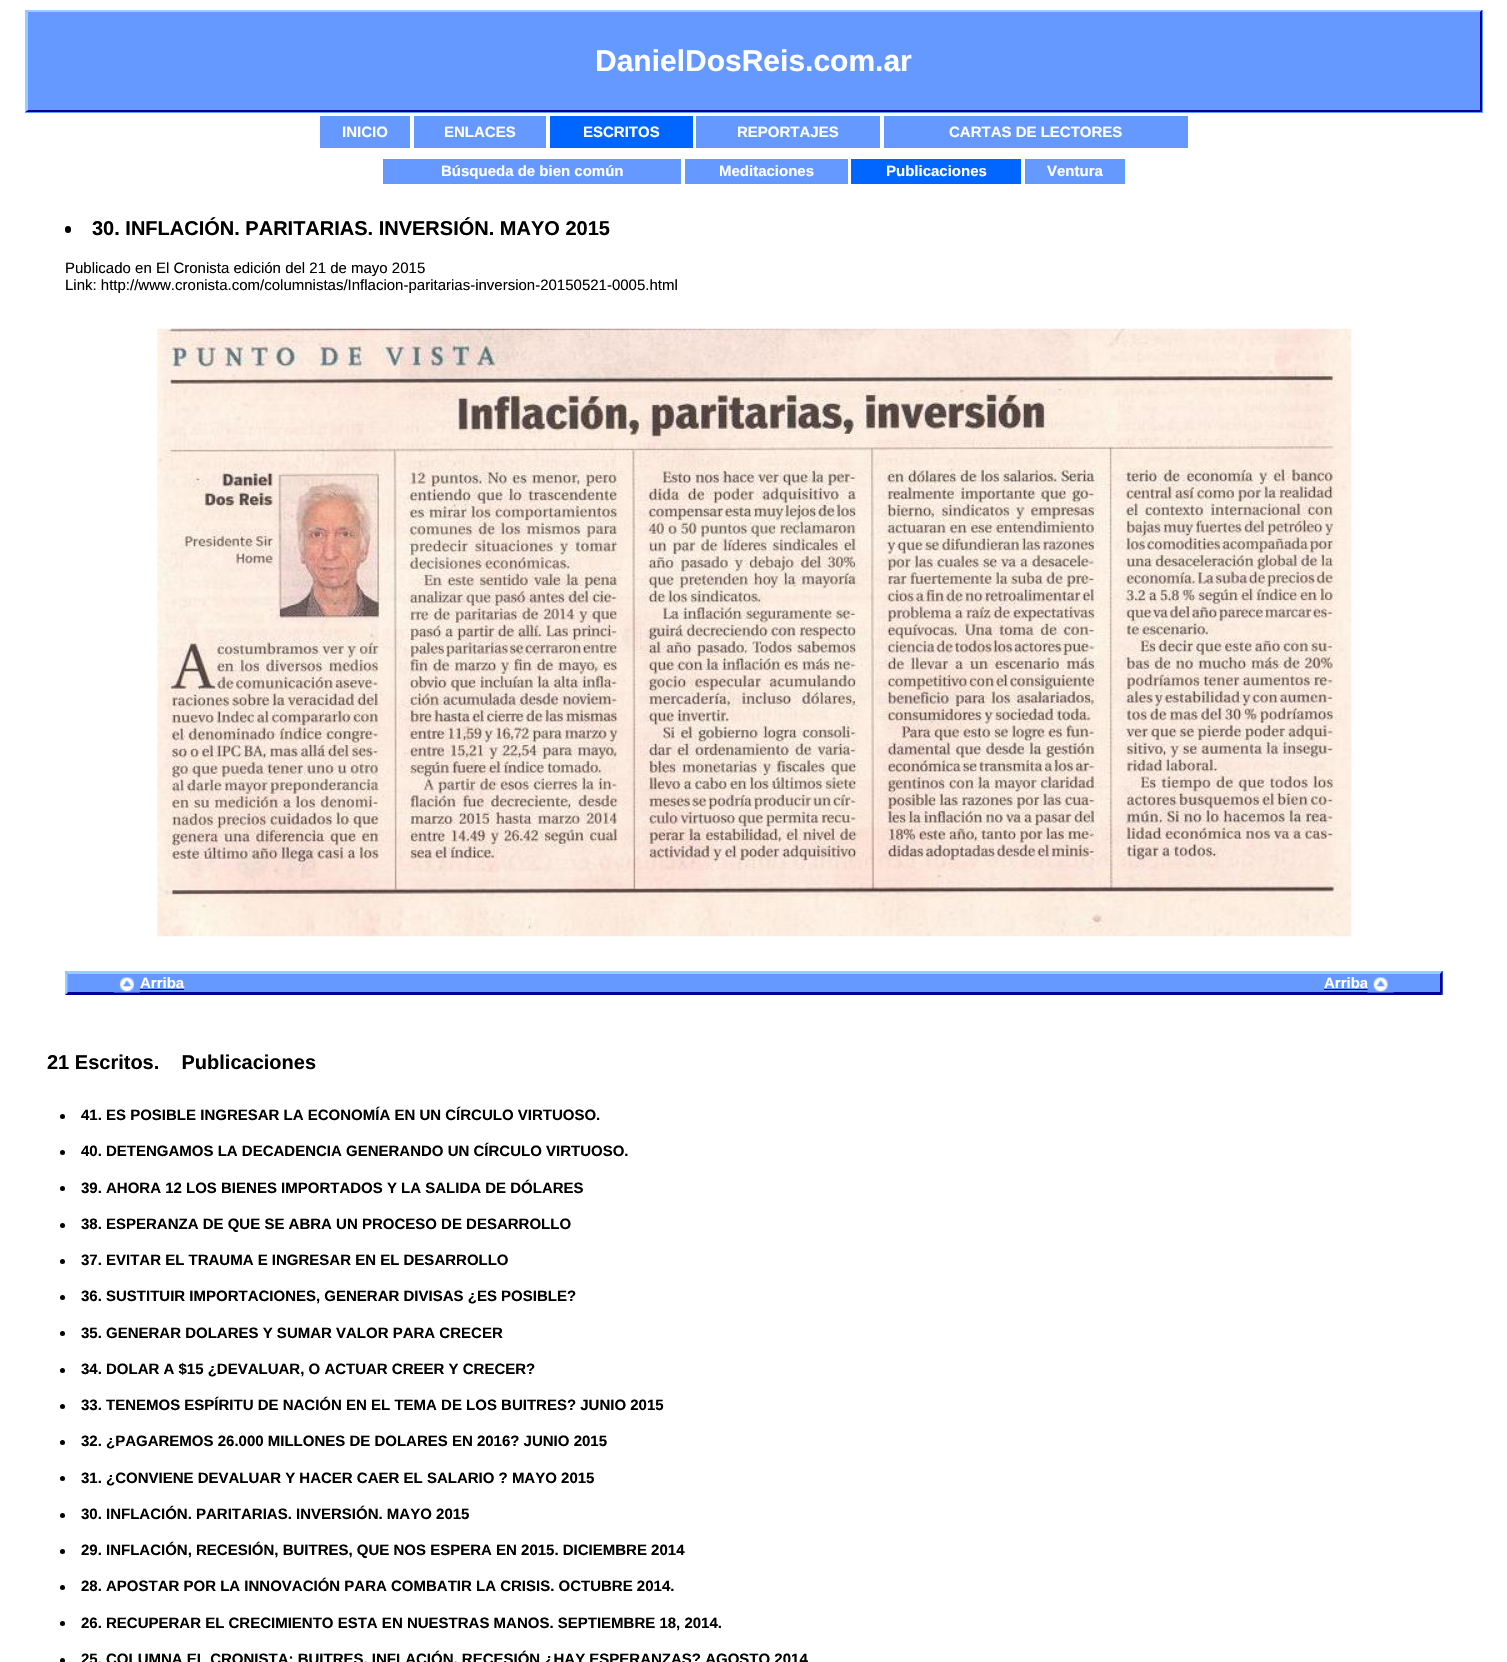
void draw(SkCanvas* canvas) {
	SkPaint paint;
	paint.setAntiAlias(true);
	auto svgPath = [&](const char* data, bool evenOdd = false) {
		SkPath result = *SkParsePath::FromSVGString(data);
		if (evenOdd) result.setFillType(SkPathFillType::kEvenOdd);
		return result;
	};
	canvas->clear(0xffffffff);
	paint.setColor(0xff6699ff);
	canvas->drawRect(SkRect::MakeXYWH(25, 10, 1458, 103), paint);
	paint.setColor(0xff99ccff);
	canvas->drawPath(svgPath("M25 10H1482L1480 12H28Z"), paint);
	paint.setColor(0xff000099);
	canvas->drawPath(svgPath("M1482 10V112L1480 110V12Z"), paint);
	canvas->drawPath(svgPath("M1482 112H25L28 110H1480Z"), paint);
	paint.setColor(0xff99ccff);
	canvas->drawPath(svgPath("M25 112V10L28 12V110Z"), paint);
	SkFont f1(fontMgr->matchFamilyStyle("Liberation Sans", SkFontStyle::Bold()), 30);
	f1.setSubpixel(true);
	paint.setColor(0xffffffff);
	canvas->drawString("DanielDosReis.com.ar", 595, 71, f1, paint);
	paint.setColor(0xff6699ff);
	canvas->drawRect(SkRect::MakeXYWH(320, 116, 90, 32), paint);
	SkFont f2(fontMgr->matchFamilyStyle("Liberation Sans", SkFontStyle::Bold()), 15);
	f2.setSubpixel(true);
	paint.setColor(0xffffffff);
	canvas->drawString("INICIO", 342, 137, f2, paint);
	paint.setColor(0xff6699ff);
	canvas->drawRect(SkRect::MakeXYWH(414, 116, 132, 32), paint);
	paint.setColor(0xffffffff);
	canvas->drawString("ENLACES", 444, 137, f2, paint);
	paint.setColor(0xff0066ff);
	canvas->drawRect(SkRect::MakeXYWH(550, 116, 143, 32), paint);
	paint.setColor(0xffffffff);
	canvas->drawString("ESCRITOS", 583, 137, f2, paint);
	paint.setColor(0xff6699ff);
	canvas->drawRect(SkRect::MakeXYWH(696, 116, 184, 32), paint);
	paint.setColor(0xffffffff);
	canvas->drawString("REPORTAJES", 737, 137, f2, paint);
	paint.setColor(0xff6699ff);
	canvas->drawRect(SkRect::MakeXYWH(884, 116, 304, 32), paint);
	paint.setColor(0xffffffff);
	canvas->drawString("CARTAS DE LECTORES", 949, 137, f2, paint);
	paint.setColor(0xff6699ff);
	canvas->drawRect(SkRect::MakeXYWH(383, 159, 298, 25), paint);
	paint.setColor(0xffffffff);
	canvas->drawString("Búsqueda de bien común", 441, 176, f2, paint);
	paint.setColor(0xff6699ff);
	canvas->drawRect(SkRect::MakeXYWH(685, 159, 163, 25), paint);
	paint.setColor(0xffffffff);
	canvas->drawString("Meditaciones", 719, 176, f2, paint);
	paint.setColor(0xff0066ff);
	canvas->drawRect(SkRect::MakeXYWH(851, 159, 170, 25), paint);
	paint.setColor(0xffffffff);
	canvas->drawString("Publicaciones", 886, 176, f2, paint);
	paint.setColor(0xff6699ff);
	canvas->drawRect(SkRect::MakeXYWH(1025, 159, 100, 25), paint);
	paint.setColor(0xffffffff);
	canvas->drawString("Ventura", 1047, 176, f2, paint);
	paint.setColor(0xff000000);
	canvas->drawRoundRect(SkRect::MakeXYWH(65, 226, 6, 7), 3, 3, paint);
	SkFont f3(fontMgr->matchFamilyStyle("Liberation Sans", SkFontStyle::Bold()), 20);
	f3.setSubpixel(true);
	canvas->drawString("30. INFLACIÓN. PARITARIAS. INVERSIÓN. MAYO 2015", 92, 235, f3, paint);
	SkFont f4(fontMgr->matchFamilyStyle("Liberation Sans", SkFontStyle::Normal()), 15);
	f4.setSubpixel(true);
	canvas->drawString("Publicado en El Cronista edición del 21 de mayo 2015", 65, 273, f4, paint);
	canvas->drawString("Link: http://www.cronista.com/columnistas/Inflacion-paritarias-inversion-20150521-0005.html", 65, 290, f4, paint);
	canvas->drawImageRect(SkImages::DeferredFromEncodedData(SkData::MakeFromFileName("img1.png")), SkRect::MakeXYWH(157, 328, 1195, 609), SkSamplingOptions());
	paint.setColor(0xff6699ff);
	canvas->drawRect(SkRect::MakeXYWH(65, 971, 1378, 24), paint);
	paint.setColor(0xff99ccff);
	canvas->drawPath(svgPath("M65 971H1442L1440 974H68Z"), paint);
	paint.setColor(0xff000099);
	canvas->drawPath(svgPath("M1442.5 971V995L1440 992.5V974Z"), paint);
	canvas->drawPath(svgPath("M1442 995H65L68 992H1440Z"), paint);
	paint.setColor(0xff99ccff);
	canvas->drawPath(svgPath("M65 995V971L67.5 974V992.5Z"), paint);
	canvas->drawImageRect(SkImages::DeferredFromEncodedData(SkData::MakeFromFileName("img2.png")), SkRect::MakeXYWH(113, 977, 27, 16), SkSamplingOptions());
	paint.setColor(0xffffffff);
	canvas->drawString("Arriba", 140, 988, f2, paint);
	paint.setColor(0xff0000ee);
	canvas->drawRect(SkRect::MakeXYWH(140, 989, 44, 1), paint);
	paint.setColor(0xffffffff);
	canvas->drawString("Arriba", 1324, 988, f2, paint);
	paint.setColor(0xff0000ee);
	canvas->drawRect(SkRect::MakeXYWH(1324, 989, 44, 1), paint);
	canvas->drawImageRect(SkImages::DeferredFromEncodedData(SkData::MakeFromFileName("img3.png")), SkRect::MakeXYWH(1367, 977, 27, 16), SkSamplingOptions());
	paint.setColor(0xff000000);
	canvas->drawString("21 Escritos.    Publicaciones", 47, 1069, f3, paint);
	canvas->drawCircle(62.5, 1116.5, 2.5, paint);
	canvas->drawString("41. ES POSIBLE INGRESAR LA ECONOMÍA EN UN CÍRCULO VIRTUOSO.", 81, 1120, f2, paint);
	canvas->drawCircle(62.5, 1152.5, 2.5, paint);
	canvas->drawString("40. DETENGAMOS LA DECADENCIA GENERANDO UN CÍRCULO VIRTUOSO.", 81, 1156, f2, paint);
	canvas->drawCircle(62.5, 1188.5, 2.5, paint);
	canvas->drawString("39. AHORA 12 LOS BIENES IMPORTADOS Y LA SALIDA DE DÓLARES", 81, 1193, f2, paint);
	canvas->drawCircle(62.5, 1225.5, 2.5, paint);
	canvas->drawString("38. ESPERANZA DE QUE SE ABRA UN PROCESO DE DESARROLLO", 81, 1229, f2, paint);
	canvas->drawCircle(62.5, 1261.5, 2.5, paint);
	canvas->drawString("37. EVITAR EL TRAUMA E INGRESAR EN EL DESARROLLO", 81, 1265, f2, paint);
	canvas->drawCircle(62.5, 1297.5, 2.5, paint);
	canvas->drawString("36. SUSTITUIR IMPORTACIONES, GENERAR DIVISAS ¿ES POSIBLE?", 81, 1301, f2, paint);
	canvas->drawCircle(62.5, 1333.5, 2.5, paint);
	canvas->drawString("35. GENERAR DOLARES Y SUMAR VALOR PARA CRECER", 81, 1338, f2, paint);
	canvas->drawCircle(62.5, 1370.5, 2.5, paint);
	canvas->drawString("34. DOLAR A $15 ¿DEVALUAR, O ACTUAR CREER Y CRECER?", 81, 1374, f2, paint);
	canvas->drawCircle(62.5, 1406.5, 2.5, paint);
	canvas->drawString("33. TENEMOS ESPÍRITU DE NACIÓN EN EL TEMA DE LOS BUITRES? JUNIO 2015", 81, 1410, f2, paint);
	canvas->drawCircle(62.5, 1442.5, 2.5, paint);
	canvas->drawString("32. ¿PAGAREMOS 26.000 MILLONES DE DOLARES EN 2016? JUNIO 2015", 81, 1446, f2, paint);
	canvas->drawCircle(62.5, 1478.5, 2.5, paint);
	canvas->drawString("31. ¿CONVIENE DEVALUAR Y HACER CAER EL SALARIO ? MAYO 2015", 81, 1483, f2, paint);
	canvas->drawCircle(62.5, 1515.5, 2.5, paint);
	canvas->drawString("30. INFLACIÓN. PARITARIAS. INVERSIÓN. MAYO 2015", 81, 1519, f2, paint);
	canvas->drawCircle(62.5, 1551.5, 2.5, paint);
	canvas->drawString("29. INFLACIÓN, RECESIÓN, BUITRES, QUE NOS ESPERA EN 2015. DICIEMBRE 2014", 81, 1555, f2, paint);
	canvas->drawCircle(62.5, 1587.5, 2.5, paint);
	canvas->drawString("28. APOSTAR POR LA INNOVACIÓN PARA COMBATIR LA CRISIS. OCTUBRE 2014.", 81, 1591, f2, paint);
	canvas->drawCircle(62.5, 1623.5, 2.5, paint);
	canvas->drawString("26. RECUPERAR EL CRECIMIENTO ESTA EN NUESTRAS MANOS. SEPTIEMBRE 18, 2014.", 81, 1628, f2, paint);
	canvas->drawCircle(62.5, 1660.5, 2.5, paint);
	canvas->drawString("25. COLUMNA EL CRONISTA: BUITRES, INFLACIÓN, RECESIÓN ¿HAY ESPERANZAS? AGOSTO 2014", 81, 1664, f2, paint);
}
